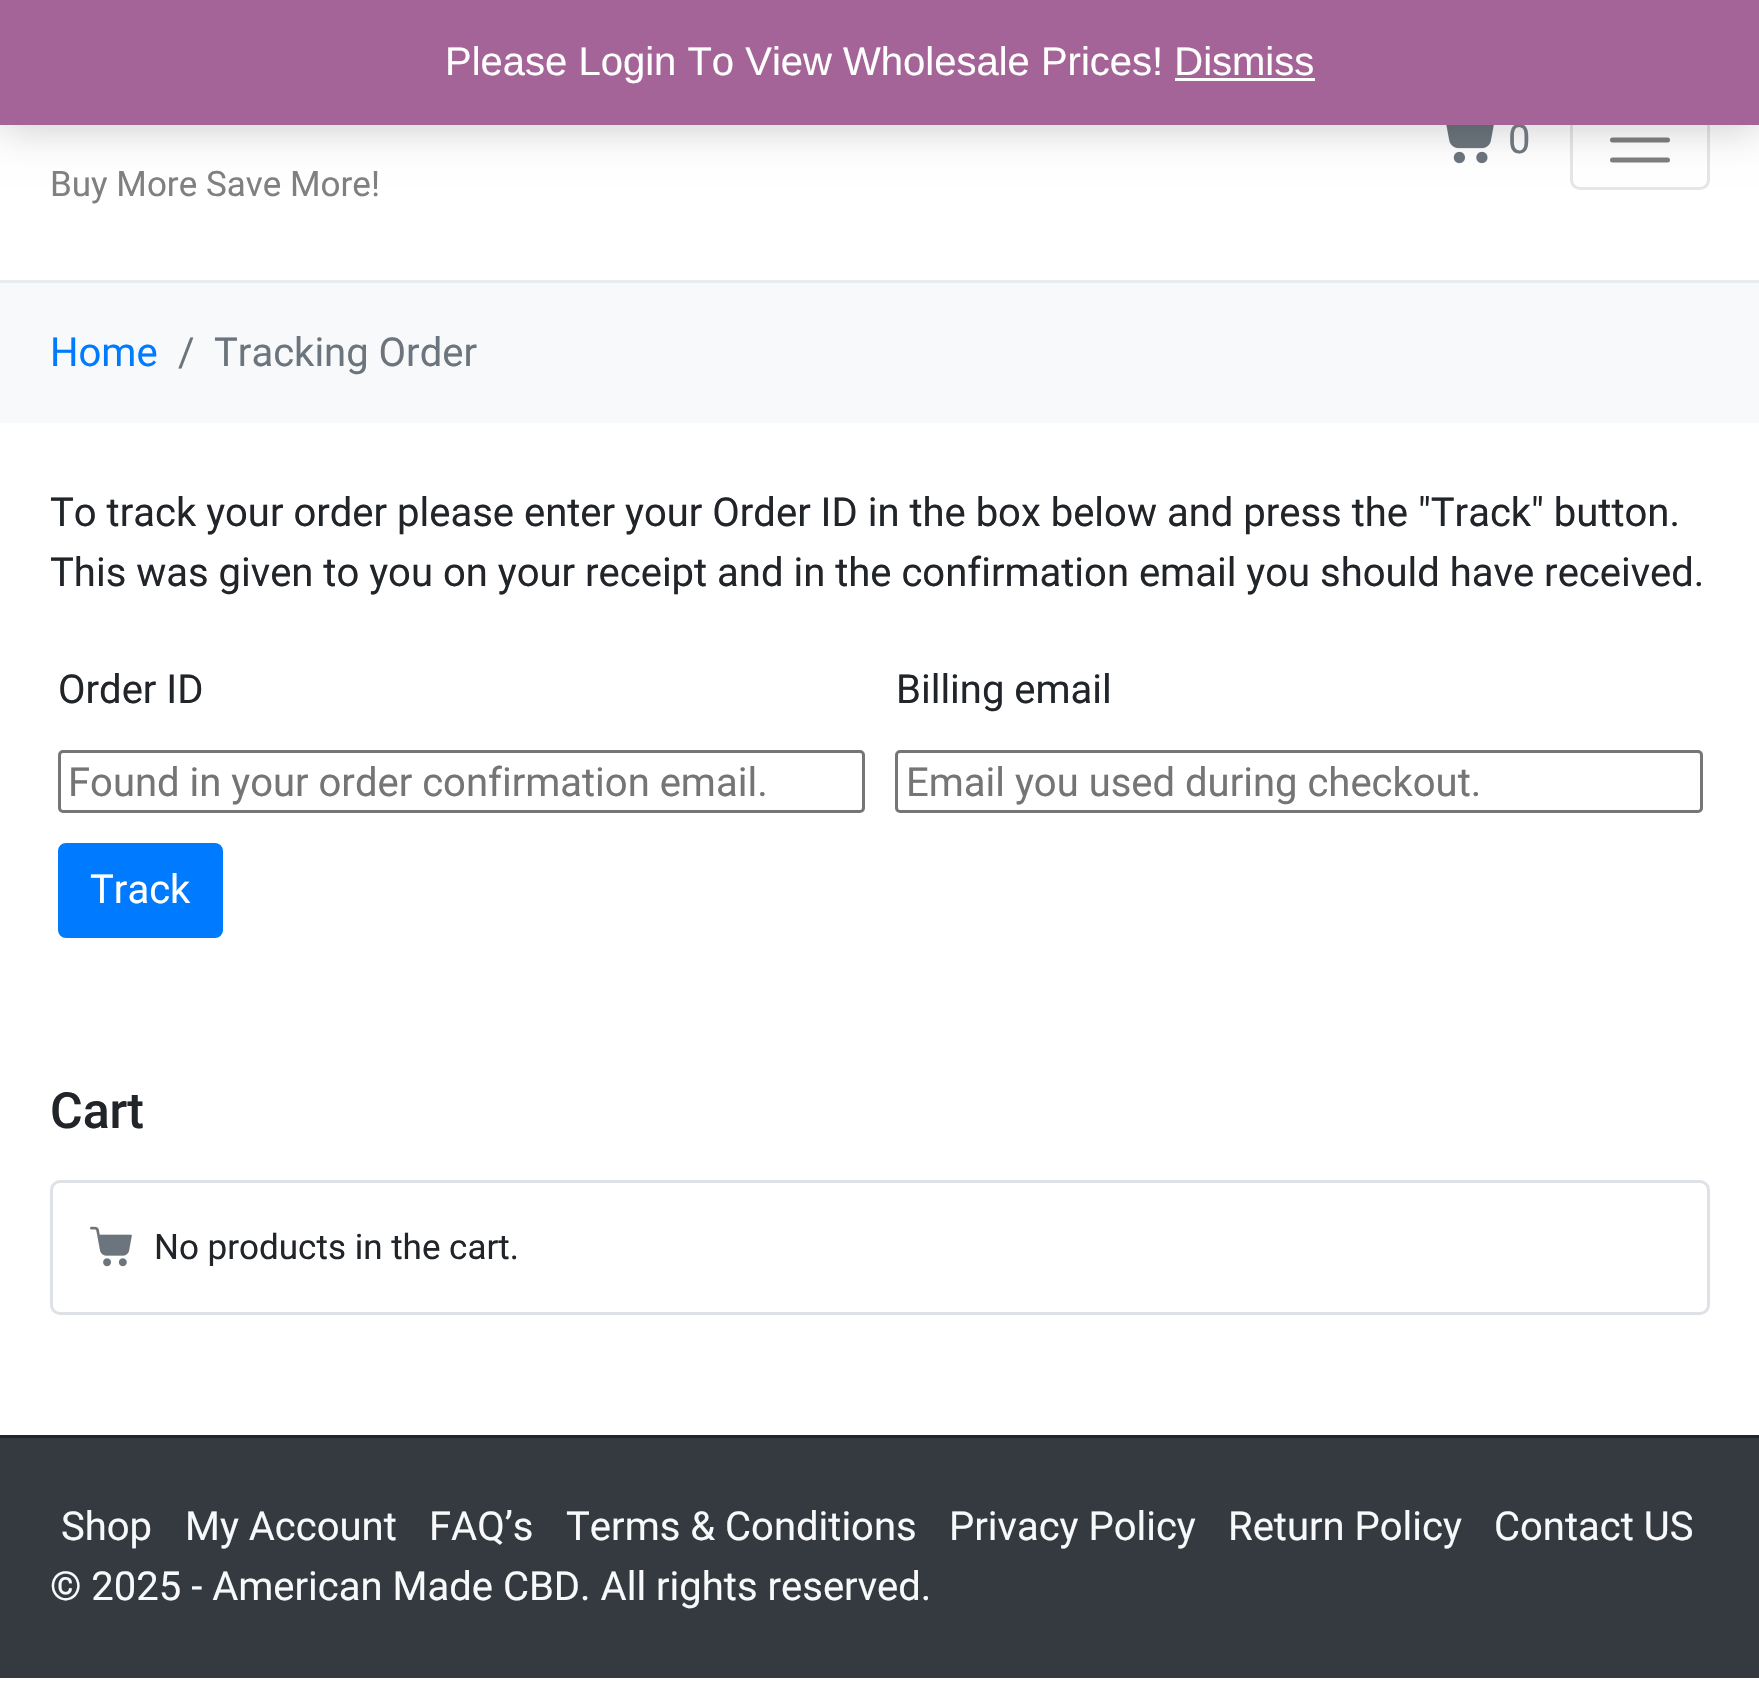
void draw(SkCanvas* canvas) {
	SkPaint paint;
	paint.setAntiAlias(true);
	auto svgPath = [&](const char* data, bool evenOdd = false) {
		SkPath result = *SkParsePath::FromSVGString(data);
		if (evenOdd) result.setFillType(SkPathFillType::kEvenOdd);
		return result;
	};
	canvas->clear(0xffffffff);
	canvas->drawImageRect(SkImages::DeferredFromEncodedData(SkData::MakeFromFileName("img1.png")), SkRect::MakeXYWH(1446, 125, 48, 39), SkSamplingOptions());
	paint.setStroke(true);
	paint.setStrokeWidth(3);
	paint.setColor(0xffe6e6e6);
	canvas->drawRoundRect(SkRect::MakeXYWH(1571.5, 91.5, 137, 97), 8.5, 8.5, paint);
	paint.setStrokeWidth(5);
	paint.setStrokeCap(SkPaint::kRound_Cap);
	paint.setColor(0xff808080);
	canvas->drawPath(svgPath("M1612.5 120H1667.5M1612.5 140H1667.5M1612.5 160H1667.5"), paint);
	paint.setStroke(false);
	paint.setColor(0x33000000);
	paint.setMaskFilter(SkMaskFilter::MakeBlur(kNormal_SkBlurStyle, 20));
	canvas->drawRect(SkRect::MakeXYWH(0, 3, 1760, 125), paint);
	paint.setMaskFilter(nullptr);
	SkFont f1(fontMgr->matchFamilyStyle("Roboto", SkFontStyle::Normal()), 40);
	f1.setSubpixel(true);
	paint.setColor(0xff6c757d);
	canvas->drawString("0", 1508, 153, f1, paint);
	paint.setColor(0xffa46497);
	canvas->drawRect(SkRect::MakeXYWH(0, 0, 1759, 125), paint);
	SkFont f2(fontMgr->matchFamilyStyle("Liberation Sans", SkFontStyle::Normal()), 40);
	f2.setSubpixel(true);
	paint.setColor(0xffffffff);
	canvas->drawString("Please Login To View Wholesale Prices! Dismiss", 445, 75, f2, paint);
	canvas->drawRect(SkRect::MakeXYWH(1175, 78, 140, 3), paint);
	paint.setColor(0xffe9ecef);
	canvas->drawRect(SkRect::MakeXYWH(0, 280, 1759, 3), paint);
	SkFont f3(fontMgr->matchFamilyStyle("Roboto", SkFontStyle::Normal()), 35);
	f3.setSubpixel(true);
	paint.setColor(0xff808080);
	canvas->drawString("Buy More Save More!", 50, 196, f3, paint);
	paint.setColor(0xfff8f9fa);
	canvas->drawRect(SkRect::MakeXYWH(0, 283, 1759, 140), paint);
	paint.setColor(0xff007bff);
	canvas->drawString("Home", 50, 366, f1, paint);
	paint.setColor(0xff6c757d);
	canvas->drawString("/", 178, 366, f1, paint);
	canvas->drawString("Tracking Order", 214, 366, f1, paint);
	paint.setColor(0xff212529);
	canvas->drawString("To track your order please enter your Order ID in the box below and press the \"Track\" button.", 50, 526, f1, paint);
	canvas->drawString("This was given to you on your receipt and in the confirmation email you should have received.", 50, 586, f1, paint);
	canvas->drawString("Order ID", 58, 703, f1, paint);
	paint.setStroke(true);
	paint.setStrokeWidth(3);
	paint.setStrokeCap(SkPaint::kButt_Cap);
	paint.setColor(0xff767676);
	canvas->drawRoundRect(SkRect::MakeXYWH(59.5, 751.5, 804, 60), 3.5, 3.5, paint);
	paint.setStroke(false);
	paint.setColor(0xff757575);
	canvas->drawString("Found in your order confirmation email.", 68, 796, f1, paint);
	paint.setColor(0xff212529);
	canvas->drawString("Billing email", 896, 703, f1, paint);
	paint.setStroke(true);
	paint.setColor(0xff767676);
	canvas->drawRoundRect(SkRect::MakeXYWH(896.5, 751.5, 805, 60), 3.5, 3.5, paint);
	paint.setStroke(false);
	paint.setColor(0xff757575);
	canvas->drawString("Email you used during checkout.", 906, 796, f1, paint);
	paint.setColor(0xff007bff);
	canvas->drawRoundRect(SkRect::MakeXYWH(59.5, 844.5, 162, 92), 6.5, 6.5, paint);
	paint.setStroke(true);
	canvas->drawRoundRect(SkRect::MakeXYWH(59.5, 844.5, 162, 92), 6.5, 6.5, paint);
	paint.setStroke(false);
	paint.setColor(0xffffffff);
	canvas->drawString("Track", 90, 903, f1, paint);
	SkFont f4(fontMgr->matchFamilyStyle("Roboto", SkFontStyle(500, SkFontStyle::kNormal_Width, SkFontStyle::kUpright_Slant)), 50);
	f4.setSubpixel(true);
	paint.setColor(0xff212529);
	canvas->drawString("Cart", 50, 1128, f4, paint);
	paint.setStroke(true);
	paint.setColor(0xffdee2e6);
	canvas->drawRoundRect(SkRect::MakeXYWH(51.5, 1181.5, 1657, 132), 8.5, 8.5, paint);
	canvas->drawImageRect(SkImages::DeferredFromEncodedData(SkData::MakeFromFileName("img2.png")), SkRect::MakeXYWH(90, 1226, 42, 41), SkSamplingOptions());
	paint.setStroke(false);
	paint.setColor(0xff212529);
	canvas->drawString("No products in the cart.", 154, 1259, f3, paint);
	paint.setColor(0xff343a40);
	canvas->drawRect(SkRect::MakeXYWH(0, 1438, 1759, 240), paint);
	paint.setColor(0xff212529);
	canvas->drawRect(SkRect::MakeXYWH(0, 1435, 1759, 3), paint);
	paint.setColor(0xfff8f9fa);
	canvas->drawString("Shop", 61, 1540, f1, paint);
	canvas->drawString("My Account", 185, 1540, f1, paint);
	canvas->drawString("FAQ’s", 429, 1540, f1, paint);
	canvas->drawString("Terms & Conditions", 566, 1540, f1, paint);
	canvas->drawString("Privacy Policy", 949, 1540, f1, paint);
	canvas->drawString("Return Policy", 1228, 1540, f1, paint);
	canvas->drawString("Contact US", 1494, 1540, f1, paint);
	canvas->drawString("© 2025 - American Made CBD. All rights reserved.", 50, 1600, f1, paint);
}
